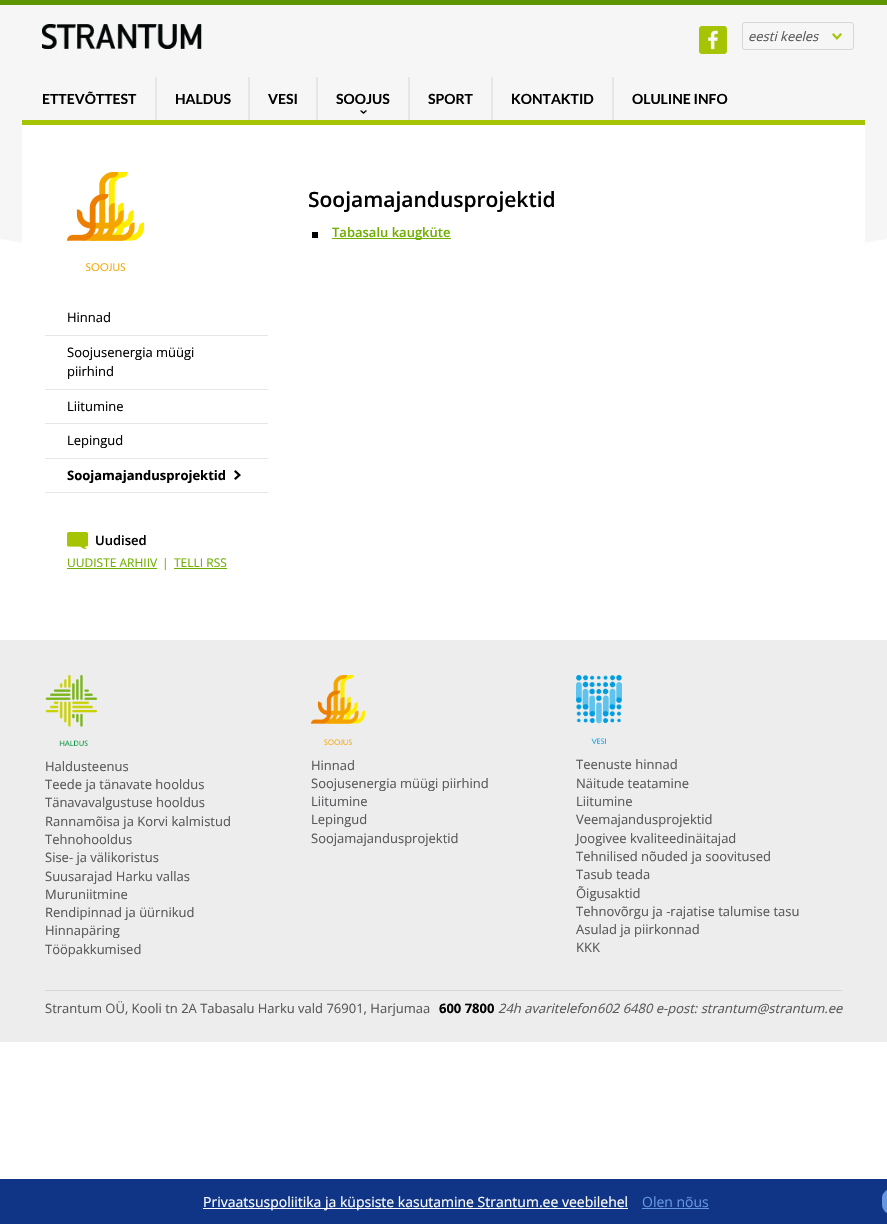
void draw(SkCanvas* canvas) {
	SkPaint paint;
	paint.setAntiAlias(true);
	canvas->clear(0xffffffff);
	canvas->drawImageRect(SkImages::DeferredFromEncodedData(SkData::MakeFromFileName("img1.png")), SkRect::MakeXYWH(0, 5, 887, 273), SkSamplingOptions());
	paint.setColor(0xff5d9503);
	canvas->drawRect(SkRect::MakeXYWH(0, 0, 887, 5), paint);
	paint.setColor(0xffa6c403);
	canvas->drawRect(SkRect::MakeXYWH(22, 120, 843, 5), paint);
	canvas->drawImageRect(SkImages::DeferredFromEncodedData(SkData::MakeFromFileName("img2.png")), SkRect::MakeXYWH(42, 24, 160, 25), SkSamplingOptions());
	canvas->drawImageRect(SkImages::DeferredFromEncodedData(SkData::MakeFromFileName("img3.png")), SkRect::MakeXYWH(699, 26, 28, 28), SkSamplingOptions());
	paint.setStroke(true);
	paint.setStrokeWidth(1);
	paint.setColor(0xffd7d7d7);
	canvas->drawRoundRect(SkRect::MakeXYWH(742.5, 22.5, 111, 27), 2.5, 2.5, paint);
	SkFont f1(fontMgr->matchFamilyStyle("Open Sans", SkFontStyle::Italic()), 13);
	f1.setSubpixel(true);
	paint.setStroke(false);
	paint.setColor(0xff58595b);
	canvas->drawString("eesti keeles", 748, 41, f1, paint);
	canvas->drawImageRect(SkImages::DeferredFromEncodedData(SkData::MakeFromFileName("img4.png")), SkRect::MakeXYWH(832, 33, 10, 7), SkSamplingOptions());
	SkFont f2(fontMgr->matchFamilyStyle("Lato", SkFontStyle::Bold()), 14);
	f2.setSubpixel(true);
	paint.setColor(0xff000000);
	canvas->drawString("ETTEVÕTTEST", 42, 104, f2, paint);
	paint.setColor(0xffe6e6e6);
	canvas->drawRect(SkRect::MakeXYWH(155, 77, 2, 43), paint);
	paint.setColor(0xff000000);
	canvas->drawString("HALDUS", 175, 104, f2, paint);
	paint.setColor(0xffe6e6e6);
	canvas->drawRect(SkRect::MakeXYWH(248, 77, 2, 43), paint);
	paint.setColor(0xff000000);
	canvas->drawString("VESI", 268, 104, f2, paint);
	paint.setColor(0xffe6e6e6);
	canvas->drawRect(SkRect::MakeXYWH(316, 77, 2, 43), paint);
	canvas->drawImageRect(SkImages::DeferredFromEncodedData(SkData::MakeFromFileName("img5.png")), SkRect::MakeXYWH(360, 110, 7, 4), SkSamplingOptions());
	paint.setColor(0xff000000);
	canvas->drawString("SOOJUS", 336, 104, f2, paint);
	paint.setColor(0xffe6e6e6);
	canvas->drawRect(SkRect::MakeXYWH(408, 77, 2, 43), paint);
	paint.setColor(0xff000000);
	canvas->drawString("SPORT", 428, 104, f2, paint);
	paint.setColor(0xffe6e6e6);
	canvas->drawRect(SkRect::MakeXYWH(491, 77, 2, 43), paint);
	paint.setColor(0xff000000);
	canvas->drawString("KONTAKTID", 511, 104, f2, paint);
	paint.setColor(0xffe6e6e6);
	canvas->drawRect(SkRect::MakeXYWH(612, 77, 2, 43), paint);
	paint.setColor(0xff000000);
	canvas->drawString("OLULINE INFO", 632, 104, f2, paint);
	paint.setColor(0xffffffff);
	canvas->drawRect(SkRect::MakeXYWH(22, 125, 843, 153), paint);
	SkFont f3(fontMgr->matchFamilyStyle("Open Sans", SkFontStyle(600, SkFontStyle::kNormal_Width, SkFontStyle::kUpright_Slant)), 21);
	f3.setSubpixel(true);
	paint.setColor(0xff000000);
	canvas->drawString("Soojamajandusprojektid", 308, 207, f3, paint);
	canvas->drawRect(SkRect::MakeXYWH(312, 232, 6, 6), paint);
	paint.setColor(0xff70af02);
	canvas->drawRect(SkRect::MakeXYWH(332, 238, 119, 1), paint);
	SkFont f4(fontMgr->matchFamilyStyle("Open Sans", SkFontStyle(600, SkFontStyle::kNormal_Width, SkFontStyle::kUpright_Slant)), 13);
	f4.setSubpixel(true);
	canvas->drawString("Tabasalu kaugküte", 332, 237, f4, paint);
	canvas->drawImageRect(SkImages::DeferredFromEncodedData(SkData::MakeFromFileName("img6.png")), SkRect::MakeXYWH(67, 172, 77, 99), SkSamplingOptions());
	paint.setColor(0xffe6e6e6);
	canvas->drawRect(SkRect::MakeXYWH(45, 335, 223, 1), paint);
	SkFont f5(fontMgr->matchFamilyStyle("Open Sans", SkFontStyle::Normal()), 13);
	f5.setSubpixel(true);
	paint.setColor(0xff000000);
	canvas->drawString("Hinnad", 67, 322, f5, paint);
	paint.setColor(0xffe6e6e6);
	canvas->drawRect(SkRect::MakeXYWH(45, 389, 223, 1), paint);
	paint.setColor(0xff000000);
	canvas->drawString("Soojusenergia müügi", 67, 357, f5, paint);
	canvas->drawString("piirhind", 67, 376, f5, paint);
	paint.setColor(0xffe6e6e6);
	canvas->drawRect(SkRect::MakeXYWH(45, 423, 223, 1), paint);
	paint.setColor(0xff000000);
	canvas->drawString("Liitumine", 67, 411, f5, paint);
	paint.setColor(0xffe6e6e6);
	canvas->drawRect(SkRect::MakeXYWH(45, 458, 223, 1), paint);
	paint.setColor(0xff000000);
	canvas->drawString("Lepingud", 67, 445, f5, paint);
	paint.setColor(0xffe6e6e6);
	canvas->drawRect(SkRect::MakeXYWH(45, 492, 223, 1), paint);
	canvas->drawImageRect(SkImages::DeferredFromEncodedData(SkData::MakeFromFileName("img7.png")), SkRect::MakeXYWH(234, 470, 7, 10), SkSamplingOptions());
	SkFont f6(fontMgr->matchFamilyStyle("Open Sans", SkFontStyle::Bold()), 13);
	f6.setSubpixel(true);
	paint.setColor(0xff000000);
	canvas->drawString("Soojamajandusprojektid", 67, 480, f6, paint);
	canvas->drawImageRect(SkImages::DeferredFromEncodedData(SkData::MakeFromFileName("img8.png")), SkRect::MakeXYWH(67, 532, 21, 17), SkSamplingOptions());
	canvas->drawString("Uudised", 95, 545, f4, paint);
	SkFont f7(fontMgr->matchFamilyStyle("Open Sans", SkFontStyle::Normal()), 12);
	f7.setSubpixel(true);
	paint.setColor(0xff70af02);
	canvas->drawString("UUDISTE ARHIIV", 67, 567, f7, paint);
	canvas->drawRect(SkRect::MakeXYWH(67, 568, 90, 1), paint);
	canvas->drawString("|", 162, 567, f7, paint);
	canvas->drawString("TELLI RSS", 174, 567, f7, paint);
	canvas->drawRect(SkRect::MakeXYWH(174, 568, 53, 1), paint);
	paint.setColor(0xffeeeded);
	canvas->drawRect(SkRect::MakeXYWH(0, 640, 887, 402), paint);
	canvas->drawImageRect(SkImages::DeferredFromEncodedData(SkData::MakeFromFileName("img9.png")), SkRect::MakeXYWH(45, 675, 52, 71), SkSamplingOptions());
	paint.setColor(0xff58595b);
	canvas->drawString("Haldusteenus", 45, 771, f5, paint);
	canvas->drawString("Teede ja tänavate hooldus", 45, 789, f5, paint);
	canvas->drawString("Tänavavalgustuse hooldus", 45, 807, f5, paint);
	canvas->drawString("Rannamõisa ja Korvi kalmistud", 45, 826, f5, paint);
	canvas->drawString("Tehnohooldus", 45, 844, f5, paint);
	canvas->drawString("Sise- ja välikoristus", 45, 862, f5, paint);
	canvas->drawString("Suusarajad Harku vallas", 45, 881, f5, paint);
	canvas->drawString("Muruniitmine", 45, 899, f5, paint);
	canvas->drawString("Rendipinnad ja üürnikud", 45, 917, f5, paint);
	canvas->drawString("Hinnapäring", 45, 935, f5, paint);
	canvas->drawString("Tööpakkumised", 45, 954, f5, paint);
	canvas->drawImageRect(SkImages::DeferredFromEncodedData(SkData::MakeFromFileName("img10.png")), SkRect::MakeXYWH(311, 675, 54, 70), SkSamplingOptions());
	canvas->drawString("Hinnad", 311, 770, f5, paint);
	canvas->drawString("Soojusenergia müügi piirhind", 311, 788, f5, paint);
	canvas->drawString("Liitumine", 311, 806, f5, paint);
	canvas->drawString("Lepingud", 311, 824, f5, paint);
	canvas->drawString("Soojamajandusprojektid", 311, 843, f5, paint);
	canvas->drawImageRect(SkImages::DeferredFromEncodedData(SkData::MakeFromFileName("img11.png")), SkRect::MakeXYWH(576, 675, 46, 69), SkSamplingOptions());
	canvas->drawString("Teenuste hinnad", 576, 769, f5, paint);
	canvas->drawString("Näitude teatamine", 576, 788, f5, paint);
	canvas->drawString("Liitumine", 576, 806, f5, paint);
	canvas->drawString("Veemajandusprojektid", 576, 824, f5, paint);
	canvas->drawString("Joogivee kvaliteedinäitajad", 576, 843, f5, paint);
	canvas->drawString("Tehnilised nõuded ja soovitused", 576, 861, f5, paint);
	canvas->drawString("Tasub teada", 576, 879, f5, paint);
	canvas->drawString("Õigusaktid", 576, 898, f5, paint);
	canvas->drawString("Tehnovõrgu ja -rajatise talumise tasu", 576, 916, f5, paint);
	canvas->drawString("Asulad ja piirkonnad", 576, 934, f5, paint);
	canvas->drawString("KKK", 576, 952, f5, paint);
	paint.setColor(0xffd7d6d6);
	canvas->drawRect(SkRect::MakeXYWH(45, 990, 797, 1), paint);
	paint.setColor(0xff58595b);
	canvas->drawString("Strantum OÜ, Kooli tn 2A Tabasalu Harku vald 76901, Harjumaa", 45, 1013, f5, paint);
	paint.setColor(0xff000000);
	canvas->drawString("600 7800", 439, 1013, f6, paint);
	paint.setColor(0xff58595b);
	canvas->drawString("24h avaritelefon", 498, 1013, f1, paint);
	canvas->drawString("602 6480 e-post: strantum@strantum.ee", 597, 1013, f1, paint);
	paint.setColor(0xff103586);
	canvas->drawRect(SkRect::MakeXYWH(0, 1179, 887, 45), paint);
	paint.setColor(0xffffffff);
	canvas->drawRect(SkRect::MakeXYWH(203, 1208, 425, 1), paint);
	SkFont f8(fontMgr->matchFamilyStyle("Open Sans", SkFontStyle::Normal()), 14);
	f8.setSubpixel(true);
	canvas->drawString("Privaatsuspoliitika ja küpsiste kasutamine Strantum.ee veebilehel", 203, 1207, f8, paint);
	paint.setColor(0xff6597de);
	canvas->drawString("Olen nõus", 642, 1207, f8, paint);
	canvas->drawRect(SkRect::MakeXYWH(642, 1208, 67, 1), paint);
	canvas->drawRoundRect(SkRect::MakeXYWH(882, 1189, 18, 25), 12.5, 12.5, paint);
}
